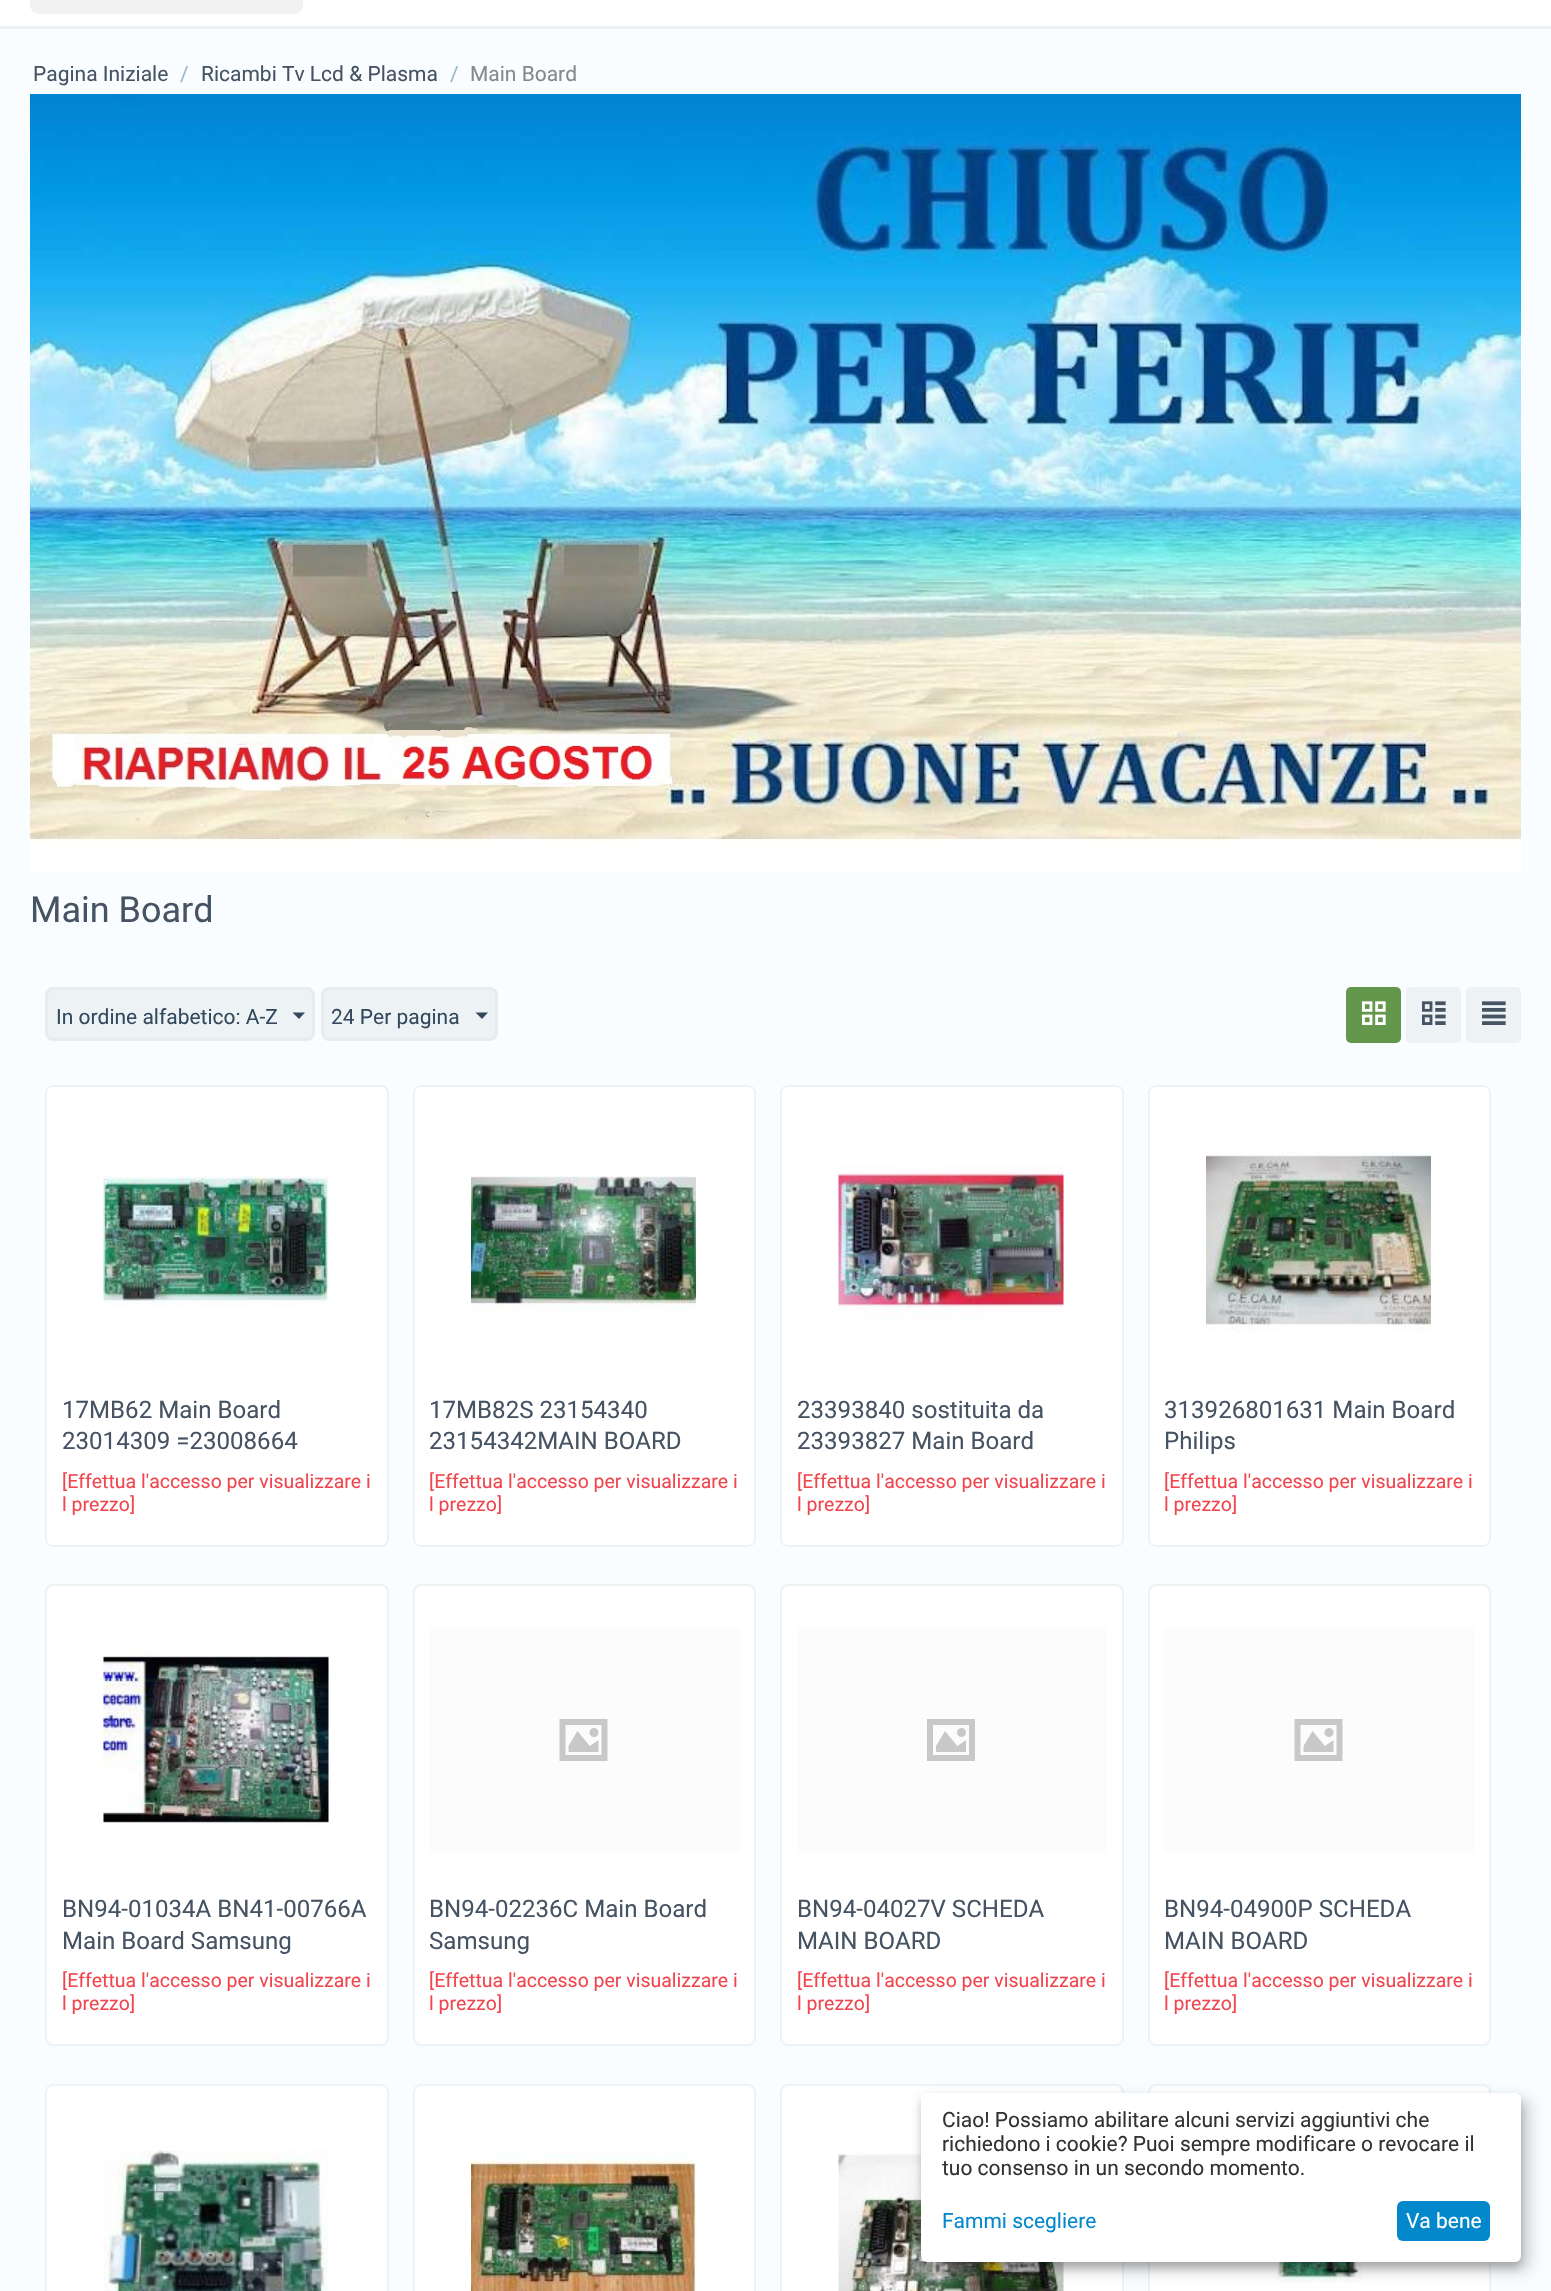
void draw(SkCanvas* canvas) {
	SkPaint paint;
	paint.setAntiAlias(true);
	auto svgPath = [&](const char* data, bool evenOdd = false) {
		SkPath result = *SkParsePath::FromSVGString(data);
		if (evenOdd) result.setFillType(SkPathFillType::kEvenOdd);
		return result;
	};
	canvas->clear(0xfffafdff);
	paint.setColor(0xffffffff);
	canvas->drawRect(SkRect::MakeXYWH(0, 0, 1551, 26), paint);
	paint.setColor(0xfff2f2f2);
	canvas->drawRoundRect(SkRect::MakeXYWH(30, -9, 273, 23), 9, 9, paint);
	paint.setColor(0xffedf2f5);
	canvas->drawRect(SkRect::MakeXYWH(0, 26, 1551, 3), paint);
	SkFont f1(fontMgr->matchFamilyStyle("Roboto", SkFontStyle::Normal()), 21);
	f1.setSubpixel(true);
	paint.setColor(0xff465363);
	canvas->drawString("Pagina Iniziale", 33, 81, f1, paint);
	paint.setColor(0xff9bb7c7);
	canvas->drawString("/", 180, 81, f1, paint);
	paint.setColor(0xff465363);
	canvas->drawString("Ricambi Tv Lcd & Plasma", 201, 81, f1, paint);
	paint.setColor(0xff9bb7c7);
	canvas->drawString("/", 450, 81, f1, paint);
	paint.setColor(0xff888888);
	canvas->drawString("Main Board", 470, 81, f1, paint);
	canvas->drawImageRect(SkImages::DeferredFromEncodedData(SkData::MakeFromFileName("img1.png")), SkRect::MakeXYWH(30, 94, 1491, 778), SkSamplingOptions());
	SkFont f2(fontMgr->matchFamilyStyle("Roboto", SkFontStyle::Normal()), 36);
	f2.setSubpixel(true);
	paint.setColor(0xff465363);
	canvas->drawString("Main Board", 30, 922, f2, paint);
	paint.setColor(0xffedf2f5);
	canvas->drawRoundRect(SkRect::MakeXYWH(46.5, 988.5, 267, 51), 6.5, 6.5, paint);
	paint.setStroke(true);
	paint.setStrokeWidth(3);
	paint.setColor(0xffe6edf1);
	canvas->drawRoundRect(SkRect::MakeXYWH(46.5, 988.5, 267, 51), 6.5, 6.5, paint);
	paint.setStroke(false);
	paint.setColor(0xff34495e);
	canvas->drawString("In ordine alfabetico: A-Z", 56, 1024, f1, paint);
	canvas->drawPath(svgPath("M299 1019L292.5 1012.5H305Z"), paint);
	paint.setColor(0xffedf2f5);
	canvas->drawRoundRect(SkRect::MakeXYWH(322.5, 988.5, 174, 51), 6.5, 6.5, paint);
	paint.setStroke(true);
	paint.setColor(0xffe6edf1);
	canvas->drawRoundRect(SkRect::MakeXYWH(322.5, 988.5, 174, 51), 6.5, 6.5, paint);
	paint.setStroke(false);
	paint.setColor(0xff34495e);
	canvas->drawString("24 Per pagina", 331, 1024, f1, paint);
	canvas->drawPath(svgPath("M482 1019L475.5 1012.5H488Z"), paint);
	paint.setColor(0xff63984c);
	canvas->drawRoundRect(SkRect::MakeXYWH(1346, 987, 55, 56), 5, 5, paint);
	canvas->drawImageRect(SkImages::DeferredFromEncodedData(SkData::MakeFromFileName("img2.png")), SkRect::MakeXYWH(1362, 1001, 24, 24), SkSamplingOptions());
	paint.setColor(0xffedf2f5);
	canvas->drawRoundRect(SkRect::MakeXYWH(1406, 987, 55, 56), 5, 5, paint);
	canvas->drawImageRect(SkImages::DeferredFromEncodedData(SkData::MakeFromFileName("img3.png")), SkRect::MakeXYWH(1422, 1001, 24, 24), SkSamplingOptions());
	canvas->drawRoundRect(SkRect::MakeXYWH(1466, 987, 55, 56), 5, 5, paint);
	canvas->drawImageRect(SkImages::DeferredFromEncodedData(SkData::MakeFromFileName("img4.png")), SkRect::MakeXYWH(1482, 1001, 24, 24), SkSamplingOptions());
	paint.setColor(0xffffffff);
	canvas->drawRoundRect(SkRect::MakeXYWH(46, 1086, 342, 460), 7, 7, paint);
	paint.setStroke(true);
	paint.setStrokeWidth(2);
	paint.setColor(0xffedf2f5);
	canvas->drawRoundRect(SkRect::MakeXYWH(46, 1086, 342, 460), 7, 7, paint);
	canvas->drawImageRect(SkImages::DeferredFromEncodedData(SkData::MakeFromFileName("img5.png")), SkRect::MakeXYWH(103, 1175, 226, 132), SkSamplingOptions());
	SkFont f3(fontMgr->matchFamilyStyle("Roboto", SkFontStyle::Normal()), 24.1);
	f3.setSubpixel(true);
	paint.setStroke(false);
	paint.setColor(0xff465363);
	canvas->drawString("17MB62 Main Board", 62, 1418, f3, paint);
	canvas->drawString("23014309 =23008664", 62, 1449, f3, paint);
	SkFont f4(fontMgr->matchFamilyStyle("Roboto", SkFontStyle::Normal()), 19.5);
	f4.setSubpixel(true);
	paint.setColor(0xfff2464e);
	canvas->drawString("[Effettua l'accesso per visualizzare i", 62, 1488, f4, paint);
	canvas->drawString("l prezzo]", 62, 1511, f4, paint);
	paint.setColor(0xffffffff);
	canvas->drawRoundRect(SkRect::MakeXYWH(414, 1086, 341, 460), 7, 7, paint);
	paint.setStroke(true);
	paint.setColor(0xffedf2f5);
	canvas->drawRoundRect(SkRect::MakeXYWH(414, 1086, 341, 460), 7, 7, paint);
	canvas->drawImageRect(SkImages::DeferredFromEncodedData(SkData::MakeFromFileName("img6.png")), SkRect::MakeXYWH(471, 1175, 225, 139), SkSamplingOptions());
	paint.setStroke(false);
	paint.setColor(0xff465363);
	canvas->drawString("17MB82S 23154340", 429, 1418, f3, paint);
	canvas->drawString("23154342MAIN BOARD", 429, 1449, f3, paint);
	paint.setColor(0xfff2464e);
	canvas->drawString("[Effettua l'accesso per visualizzare i", 429, 1488, f4, paint);
	canvas->drawString("l prezzo]", 429, 1511, f4, paint);
	paint.setColor(0xffffffff);
	canvas->drawRoundRect(SkRect::MakeXYWH(781, 1086, 342, 460), 7, 7, paint);
	paint.setStroke(true);
	paint.setColor(0xffedf2f5);
	canvas->drawRoundRect(SkRect::MakeXYWH(781, 1086, 342, 460), 7, 7, paint);
	canvas->drawImageRect(SkImages::DeferredFromEncodedData(SkData::MakeFromFileName("img7.png")), SkRect::MakeXYWH(838, 1165, 226, 155), SkSamplingOptions());
	paint.setStroke(false);
	paint.setColor(0xff465363);
	canvas->drawString("23393840 sostituita da", 797, 1418, f3, paint);
	canvas->drawString("23393827 Main Board", 797, 1449, f3, paint);
	paint.setColor(0xfff2464e);
	canvas->drawString("[Effettua l'accesso per visualizzare i", 797, 1488, f4, paint);
	canvas->drawString("l prezzo]", 797, 1511, f4, paint);
	paint.setColor(0xffffffff);
	canvas->drawRoundRect(SkRect::MakeXYWH(1149, 1086, 341, 460), 7, 7, paint);
	paint.setStroke(true);
	paint.setColor(0xffedf2f5);
	canvas->drawRoundRect(SkRect::MakeXYWH(1149, 1086, 341, 460), 7, 7, paint);
	canvas->drawImageRect(SkImages::DeferredFromEncodedData(SkData::MakeFromFileName("img8.png")), SkRect::MakeXYWH(1206, 1151, 225, 181), SkSamplingOptions());
	paint.setStroke(false);
	paint.setColor(0xff465363);
	canvas->drawString("313926801631 Main Board", 1164, 1418, f3, paint);
	canvas->drawString("Philips", 1164, 1449, f3, paint);
	paint.setColor(0xfff2464e);
	canvas->drawString("[Effettua l'accesso per visualizzare i", 1164, 1488, f4, paint);
	canvas->drawString("l prezzo]", 1164, 1511, f4, paint);
	paint.setColor(0xffffffff);
	canvas->drawRoundRect(SkRect::MakeXYWH(46, 1585, 342, 460), 7, 7, paint);
	paint.setStroke(true);
	paint.setColor(0xffedf2f5);
	canvas->drawRoundRect(SkRect::MakeXYWH(46, 1585, 342, 460), 7, 7, paint);
	canvas->drawImageRect(SkImages::DeferredFromEncodedData(SkData::MakeFromFileName("img9.png")), SkRect::MakeXYWH(103, 1651, 226, 175), SkSamplingOptions());
	paint.setStroke(false);
	paint.setColor(0xff465363);
	canvas->drawString("BN94-01034A BN41-00766A", 62, 1917, f3, paint);
	canvas->drawString("Main Board Samsung", 62, 1949, f3, paint);
	paint.setColor(0xfff2464e);
	canvas->drawString("[Effettua l'accesso per visualizzare i", 62, 1987, f4, paint);
	canvas->drawString("l prezzo]", 62, 2010, f4, paint);
	paint.setColor(0xffffffff);
	canvas->drawRoundRect(SkRect::MakeXYWH(414, 1585, 341, 460), 7, 7, paint);
	paint.setStroke(true);
	paint.setColor(0xffedf2f5);
	canvas->drawRoundRect(SkRect::MakeXYWH(414, 1585, 341, 460), 7, 7, paint);
	paint.setStroke(false);
	paint.setColor(0xfffcfcfc);
	canvas->drawRect(SkRect::MakeXYWH(429, 1628, 311, 225), paint);
	canvas->drawImageRect(SkImages::DeferredFromEncodedData(SkData::MakeFromFileName("img10.png")), SkRect::MakeXYWH(559, 1719, 49, 42), SkSamplingOptions());
	paint.setColor(0xff465363);
	canvas->drawString("BN94-02236C Main Board", 429, 1917, f3, paint);
	canvas->drawString("Samsung", 429, 1949, f3, paint);
	paint.setColor(0xfff2464e);
	canvas->drawString("[Effettua l'accesso per visualizzare i", 429, 1987, f4, paint);
	canvas->drawString("l prezzo]", 429, 2010, f4, paint);
	paint.setColor(0xffffffff);
	canvas->drawRoundRect(SkRect::MakeXYWH(781, 1585, 342, 460), 7, 7, paint);
	paint.setStroke(true);
	paint.setColor(0xffedf2f5);
	canvas->drawRoundRect(SkRect::MakeXYWH(781, 1585, 342, 460), 7, 7, paint);
	paint.setStroke(false);
	paint.setColor(0xfffcfcfc);
	canvas->drawRect(SkRect::MakeXYWH(797, 1628, 310, 225), paint);
	canvas->drawImageRect(SkImages::DeferredFromEncodedData(SkData::MakeFromFileName("img11.png")), SkRect::MakeXYWH(927, 1719, 48, 42), SkSamplingOptions());
	paint.setColor(0xff465363);
	canvas->drawString("BN94-04027V SCHEDA", 797, 1917, f3, paint);
	canvas->drawString("MAIN BOARD", 797, 1949, f3, paint);
	paint.setColor(0xfff2464e);
	canvas->drawString("[Effettua l'accesso per visualizzare i", 797, 1987, f4, paint);
	canvas->drawString("l prezzo]", 797, 2010, f4, paint);
	paint.setColor(0xffffffff);
	canvas->drawRoundRect(SkRect::MakeXYWH(1149, 1585, 341, 460), 7, 7, paint);
	paint.setStroke(true);
	paint.setColor(0xffedf2f5);
	canvas->drawRoundRect(SkRect::MakeXYWH(1149, 1585, 341, 460), 7, 7, paint);
	paint.setStroke(false);
	paint.setColor(0xfffcfcfc);
	canvas->drawRect(SkRect::MakeXYWH(1164, 1628, 311, 225), paint);
	canvas->drawImageRect(SkImages::DeferredFromEncodedData(SkData::MakeFromFileName("img10.png")), SkRect::MakeXYWH(1294, 1719, 49, 42), SkSamplingOptions());
	paint.setColor(0xff465363);
	canvas->drawString("BN94-04900P SCHEDA", 1164, 1917, f3, paint);
	canvas->drawString("MAIN BOARD", 1164, 1949, f3, paint);
	paint.setColor(0xfff2464e);
	canvas->drawString("[Effettua l'accesso per visualizzare i", 1164, 1987, f4, paint);
	canvas->drawString("l prezzo]", 1164, 2010, f4, paint);
	paint.setColor(0xffffffff);
	canvas->drawRoundRect(SkRect::MakeXYWH(46, 2085, 342, 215), 7, 7, paint);
	paint.setStroke(true);
	paint.setColor(0xffedf2f5);
	canvas->drawRoundRect(SkRect::MakeXYWH(46, 2085, 342, 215), 7, 7, paint);
	canvas->drawImageRect(SkImages::DeferredFromEncodedData(SkData::MakeFromFileName("img12.png")), SkRect::MakeXYWH(103, 2150, 226, 141), SkSamplingOptions());
	paint.setStroke(false);
	paint.setColor(0xffffffff);
	canvas->drawRoundRect(SkRect::MakeXYWH(414, 2085, 341, 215), 7, 7, paint);
	paint.setStroke(true);
	paint.setColor(0xffedf2f5);
	canvas->drawRoundRect(SkRect::MakeXYWH(414, 2085, 341, 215), 7, 7, paint);
	canvas->drawImageRect(SkImages::DeferredFromEncodedData(SkData::MakeFromFileName("img13.png")), SkRect::MakeXYWH(471, 2150, 225, 141), SkSamplingOptions());
	paint.setStroke(false);
	paint.setColor(0xffffffff);
	canvas->drawRoundRect(SkRect::MakeXYWH(781, 2085, 342, 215), 7, 7, paint);
	paint.setStroke(true);
	paint.setColor(0xffedf2f5);
	canvas->drawRoundRect(SkRect::MakeXYWH(781, 2085, 342, 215), 7, 7, paint);
	canvas->drawImageRect(SkImages::DeferredFromEncodedData(SkData::MakeFromFileName("img14.png")), SkRect::MakeXYWH(838, 2150, 226, 141), SkSamplingOptions());
	paint.setStroke(false);
	paint.setColor(0xffffffff);
	canvas->drawRoundRect(SkRect::MakeXYWH(1149, 2085, 341, 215), 7, 7, paint);
	paint.setStroke(true);
	paint.setColor(0xffedf2f5);
	canvas->drawRoundRect(SkRect::MakeXYWH(1149, 2085, 341, 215), 7, 7, paint);
	canvas->drawImageRect(SkImages::DeferredFromEncodedData(SkData::MakeFromFileName("img15.png")), SkRect::MakeXYWH(1276, 2262, 86, 21), SkSamplingOptions());
	paint.setStroke(false);
	paint.setColor(0x30000000);
	paint.setMaskFilter(SkMaskFilter::MakeBlur(kNormal_SkBlurStyle, 7.5));
	canvas->drawRoundRect(SkRect::MakeXYWH(929, 2100, 600, 170), 6, 6, paint);
	paint.setMaskFilter(nullptr);
	paint.setColor(0x33000000);
	paint.setMaskFilter(SkMaskFilter::MakeBlur(kNormal_SkBlurStyle, 4.5));
	canvas->drawRoundRect(SkRect::MakeXYWH(921, 2099, 600, 169), 6, 6, paint);
	paint.setMaskFilter(nullptr);
	paint.setColor(0xffffffff);
	canvas->drawRoundRect(SkRect::MakeXYWH(921, 2093, 600, 169), 6, 6, paint);
	paint.setColor(0xff333333);
	canvas->drawString("Ciao! Possiamo abilitare alcuni servizi aggiuntivi che", 942, 2127, f1, paint);
	canvas->drawString("richiedono i cookie? Puoi sempre modificare o revocare il", 942, 2151, f1, paint);
	canvas->drawString("tuo consenso in un secondo momento.", 942, 2175, f1, paint);
	paint.setColor(0xff0388cc);
	canvas->drawString("Fammi scegliere", 942, 2228, f1, paint);
	canvas->drawRoundRect(SkRect::MakeXYWH(1397, 2201, 93, 40), 6, 6, paint);
	paint.setColor(0xffffffff);
	canvas->drawString("Va bene", 1406, 2228, f1, paint);
}
